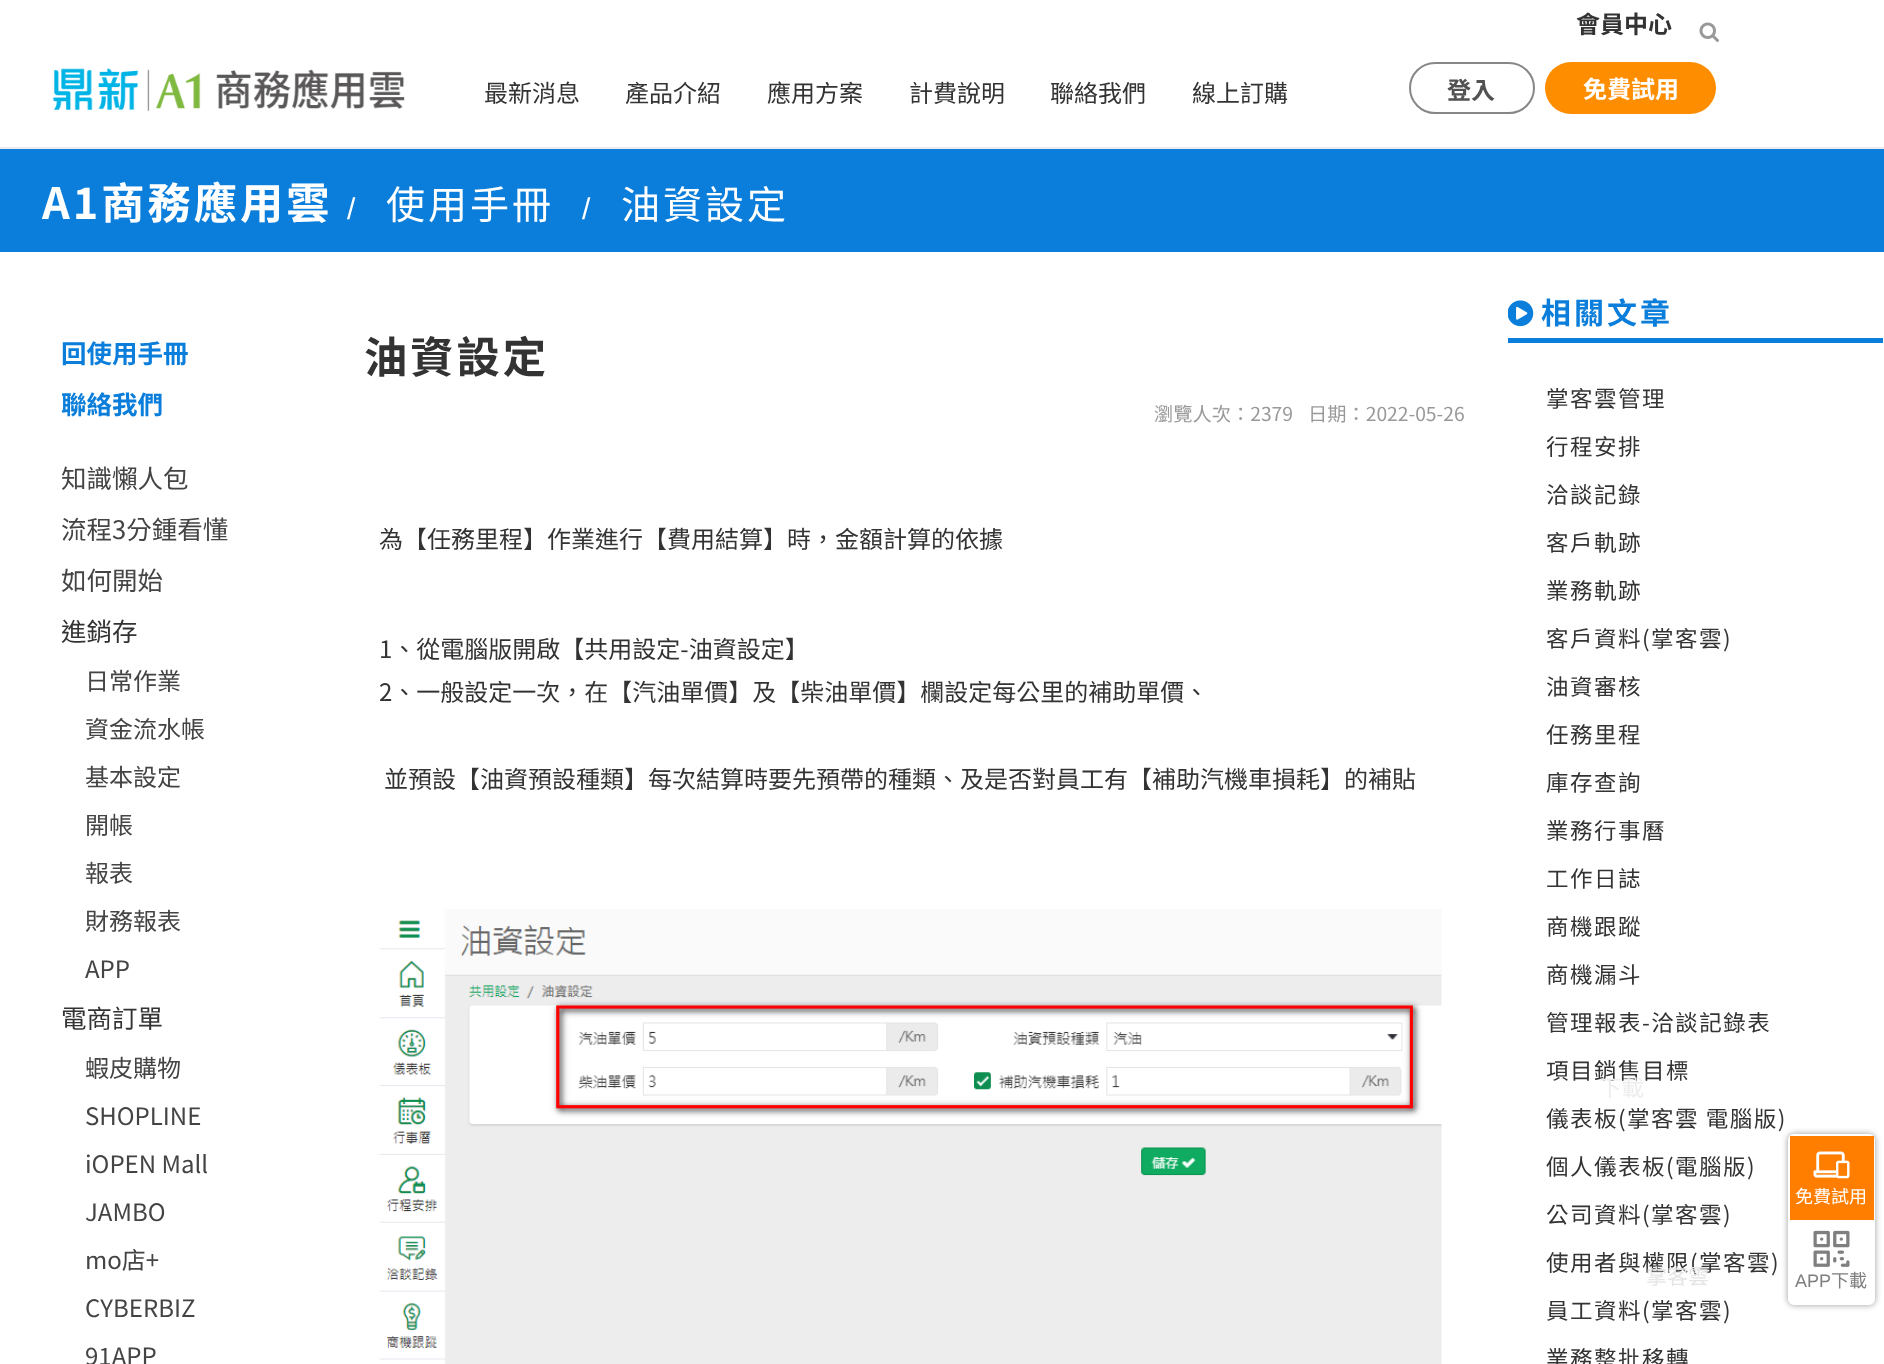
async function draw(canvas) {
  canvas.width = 1884;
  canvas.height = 1364;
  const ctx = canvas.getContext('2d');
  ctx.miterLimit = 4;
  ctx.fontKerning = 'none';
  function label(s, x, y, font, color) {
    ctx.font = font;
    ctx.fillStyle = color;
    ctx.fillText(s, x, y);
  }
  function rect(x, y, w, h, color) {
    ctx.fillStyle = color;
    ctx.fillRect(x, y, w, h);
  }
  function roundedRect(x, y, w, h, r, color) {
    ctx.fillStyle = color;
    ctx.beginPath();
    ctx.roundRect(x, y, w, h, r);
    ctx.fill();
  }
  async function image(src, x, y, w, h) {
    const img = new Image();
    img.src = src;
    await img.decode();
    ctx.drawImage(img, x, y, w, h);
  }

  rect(0, 0, 1884, 1364, '#fff');
  rect(0, 147, 1884, 2, '#ebebeb');
  label('會員中心', 1576, 33, 'bold 24px Noto Sans TC', '#333');
  await image('assets/img1.png', 1699, 22, 20, 20);
  await image('assets/img2.png', 53, 68, 352, 43);
  label('最新消息', 484, 102, '24px Noto Sans TC', '#333');
  label('產品介紹', 625, 102, '24px Noto Sans TC', '#333');
  label('應用方案', 767, 102, '24px Noto Sans TC', '#333');
  label('計費說明', 909, 102, '24px Noto Sans TC', '#333');
  label('聯絡我們', 1050, 102, '24px Noto Sans TC', '#333');
  label('線上訂購', 1192, 102, '24px Noto Sans TC', '#333');
  ctx.beginPath();
  ctx.roundRect(1410, 63, 124, 50, 25);
  ctx.strokeStyle = '#878787';
  ctx.lineWidth = 2;
  ctx.stroke();
  label('登入', 1447, 99, 'bold 24px Noto Sans TC', '#525252');
  roundedRect(1545, 62, 171, 52, 26, '#ff8d00');
  label('免費試用', 1583, 98, 'bold 24px Noto Sans TC', '#fff');
  rect(0, 149, 1884, 103, '#0a7eda');
  ctx.letterSpacing = '3px';
  label('A1商務應用雲', 42, 219, 'bold 43.25px Noto Sans TC', '#fff');
  label('/', 347, 219, '30px Liberation Sans', '#fff');
  label('使用手冊', 386, 219, '39px Noto Sans TC', '#fff');
  label('/', 582, 219, '30px Liberation Sans', '#fff');
  label('油資設定', 621, 219, '39px Noto Sans TC', '#fff');
  ctx.letterSpacing = '0px';
  label('回使用手冊', 61, 363, 'bold 25.5px Noto Sans TC', '#0a7eda');
  label('聯絡我們', 61, 414, 'bold 25.5px Noto Sans TC', '#0a7eda');
  label('知識懶人包', 61, 488, '25.5px Noto Sans TC', '#444');
  label('流程3分鍾看懂', 61, 539, '25.5px Noto Sans TC', '#444');
  label('如何開始', 61, 590, '25.5px Noto Sans TC', '#444');
  label('進銷存', 61, 641, '25.5px Noto Sans TC', '#333');
  label('日常作業', 85, 690, '24px Noto Sans TC', '#444');
  label('資金流水帳', 85, 738, '24px Noto Sans TC', '#444');
  label('基本設定', 85, 786, '24px Noto Sans TC', '#444');
  label('開帳', 85, 834, '24px Noto Sans TC', '#444');
  label('報表', 85, 882, '24px Noto Sans TC', '#444');
  label('財務報表', 85, 930, '24px Noto Sans TC', '#444');
  label('APP', 85, 978, '24px Noto Sans TC', '#444');
  label('電商訂單', 61, 1028, '25.5px Noto Sans TC', '#333');
  label('蝦皮購物', 85, 1077, '24px Noto Sans TC', '#444');
  label('SHOPLINE', 85, 1125, '24px Noto Sans TC', '#444');
  label('iOPEN Mall', 85, 1173, '24px Noto Sans TC', '#444');
  label('JAMBO', 85, 1221, '24px Noto Sans TC', '#444');
  label('mo店+', 85, 1269, '24px Noto Sans TC', '#444');
  label('CYBERBIZ', 85, 1317, '24px Noto Sans TC', '#444');
  label('91APP', 85, 1365, '24px Noto Sans TC', '#444');
  ctx.letterSpacing = '3px';
  label('油資設定', 364, 373, 'bold 43.25px Noto Sans TC', '#333');
  ctx.letterSpacing = '0px';
  label('瀏覽人次：2379', 1154, 421, '19.25px Noto Sans TC', '#999');
  label('日期：2022-05-26', 1308, 421, '19.25px Noto Sans TC', '#999');
  label('為【任務里程】作業進行【費用結算】時，金額計算的依據', 379, 548, '24px Noto Sans TC', '#333');
  label('1、從電腦版開啟【共用設定-油資設定】', 379, 658, '24px Noto Sans TC', '#333');
  label('2、一般設定一次，在【汽油單價】及【柴油單價】欄設定每公里的補助單價、', 379, 701, '24px Noto Sans TC', '#333');
  label('並預設【油資預設種類】每次結算時要先預帶的種類、及是否對員工有【補助汽機車損耗】的補貼', 384, 788, '24px Noto Sans TC', '#333');
  await image('assets/img3.png', 379, 909, 1063, 455);
  rect(1508, 338, 375, 5, '#0a7eda');
  await image('assets/img4.png', 1508, 300, 26, 27);
  ctx.letterSpacing = '3px';
  label('相關文章', 1541, 324, 'bold 30px Noto Sans TC', '#0a7eda');
  ctx.letterSpacing = '1.5px';
  label('掌客雲管理', 1546, 407, '22.5px Noto Sans TC', '#333');
  label('行程安排', 1546, 455, '22.5px Noto Sans TC', '#333');
  label('洽談記錄', 1546, 503, '22.5px Noto Sans TC', '#333');
  label('客戶軌跡', 1546, 551, '22.5px Noto Sans TC', '#333');
  label('業務軌跡', 1546, 599, '22.5px Noto Sans TC', '#333');
  label('客戶資料(掌客雲)', 1546, 647, '22.5px Noto Sans TC', '#333');
  label('油資審核', 1546, 695, '22.5px Noto Sans TC', '#333');
  label('任務里程', 1546, 743, '22.5px Noto Sans TC', '#333');
  label('庫存查詢', 1546, 791, '22.5px Noto Sans TC', '#333');
  label('業務行事曆', 1546, 839, '22.5px Noto Sans TC', '#333');
  label('工作日誌', 1546, 887, '22.5px Noto Sans TC', '#333');
  label('商機跟蹤', 1546, 935, '22.5px Noto Sans TC', '#333');
  label('商機漏斗', 1546, 983, '22.5px Noto Sans TC', '#333');
  label('管理報表-洽談記錄表', 1546, 1031, '22.5px Noto Sans TC', '#333');
  label('項目銷售目標', 1546, 1079, '22.5px Noto Sans TC', '#333');
  label('儀表板(掌客雲 電腦版)', 1546, 1127, '22.5px Noto Sans TC', '#333');
  label('個人儀表板(電腦版)', 1546, 1175, '22.5px Noto Sans TC', '#333');
  label('公司資料(掌客雲)', 1546, 1223, '22.5px Noto Sans TC', '#333');
  label('使用者與權限(掌客雲)', 1546, 1271, '22.5px Noto Sans TC', '#333');
  label('員工資料(掌客雲)', 1546, 1319, '22.5px Noto Sans TC', '#333');
  label('業務整批移轉', 1546, 1367, '22.5px Noto Sans TC', '#333');
  ctx.fillStyle = '#00000066';
  ctx.filter = 'blur(3px)';
  ctx.beginPath();
  ctx.roundRect(1788, 1134, 87, 171, 6);
  ctx.fill();
  ctx.filter = 'none';
  ctx.fillStyle = '#fff';
  ctx.beginPath();
  ctx.roundRect(1789, 1135, 85, 169, 5);
  ctx.fill();
  ctx.strokeStyle = '#fff';
  ctx.stroke();
  ctx.letterSpacing = '0px';
  label('下載', 1599, 1096, '22.5px Noto Sans CJK TC', '#ededed');
  label('掌客雲', 1646, 1284, '21px Noto Sans CJK TC', '#e5e5e5');
  await image('assets/img5.png', 1813, 1230, 37, 37);
  label('APP', 1795, 1287, '18px Liberation Sans', '#7f7f7f');
  label('下載', 1831, 1287, '18px Noto Sans CJK TC', '#7f7f7f');
  rect(1790, 1136, 84, 84, '#ff7e00');
  await image('assets/img6.png', 1813, 1151, 37, 28);
  label('免費試用', 1795, 1203, '18px Noto Sans CJK TC', '#fff');
}

draw(document.querySelector('canvas'));
